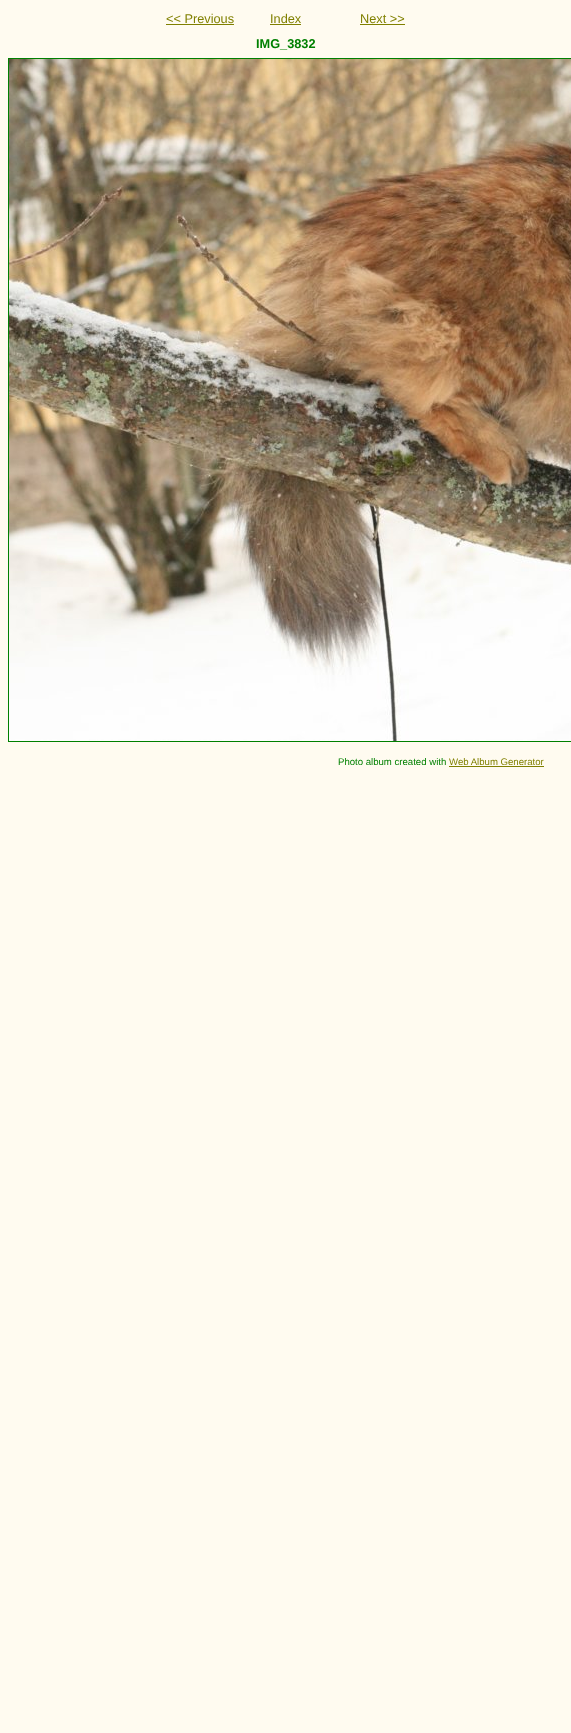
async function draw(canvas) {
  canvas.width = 571;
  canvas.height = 1733;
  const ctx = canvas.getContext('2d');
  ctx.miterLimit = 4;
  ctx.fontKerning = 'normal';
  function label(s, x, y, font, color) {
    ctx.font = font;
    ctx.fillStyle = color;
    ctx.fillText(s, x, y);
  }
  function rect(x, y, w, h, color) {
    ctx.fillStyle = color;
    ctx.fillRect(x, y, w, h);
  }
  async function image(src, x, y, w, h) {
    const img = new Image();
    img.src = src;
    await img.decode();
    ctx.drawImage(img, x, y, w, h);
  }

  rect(0, 0, 571, 1733, '#fffbf0');
  label('<< Previous', 166, 23, '12.75px Liberation Sans', '#808000');
  rect(166, 24, 68, 1, '#808000');
  label('Index', 270, 23, '12.75px Liberation Sans', '#808000');
  rect(270, 24, 31, 1, '#808000');
  label('Next >>', 360, 23, '12.75px Liberation Sans', '#808000');
  rect(360, 24, 45, 1, '#808000');
  label('IMG_3832', 256, 48, 'bold 12.75px Liberation Sans', '#008000');
  ctx.strokeStyle = '#008000';
  ctx.strokeRect(8.5, 58.5, 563, 683);
  await image('assets/img1.png', 9, 59, 562, 682);
  label('Photo album created with', 338, 765, '9.6px Liberation Sans', '#008000');
  label('Web Album Generator', 449, 765, '9.6px Liberation Sans', '#808000');
  rect(449, 766, 95, 1, '#808000');
}

draw(document.querySelector('canvas'));
